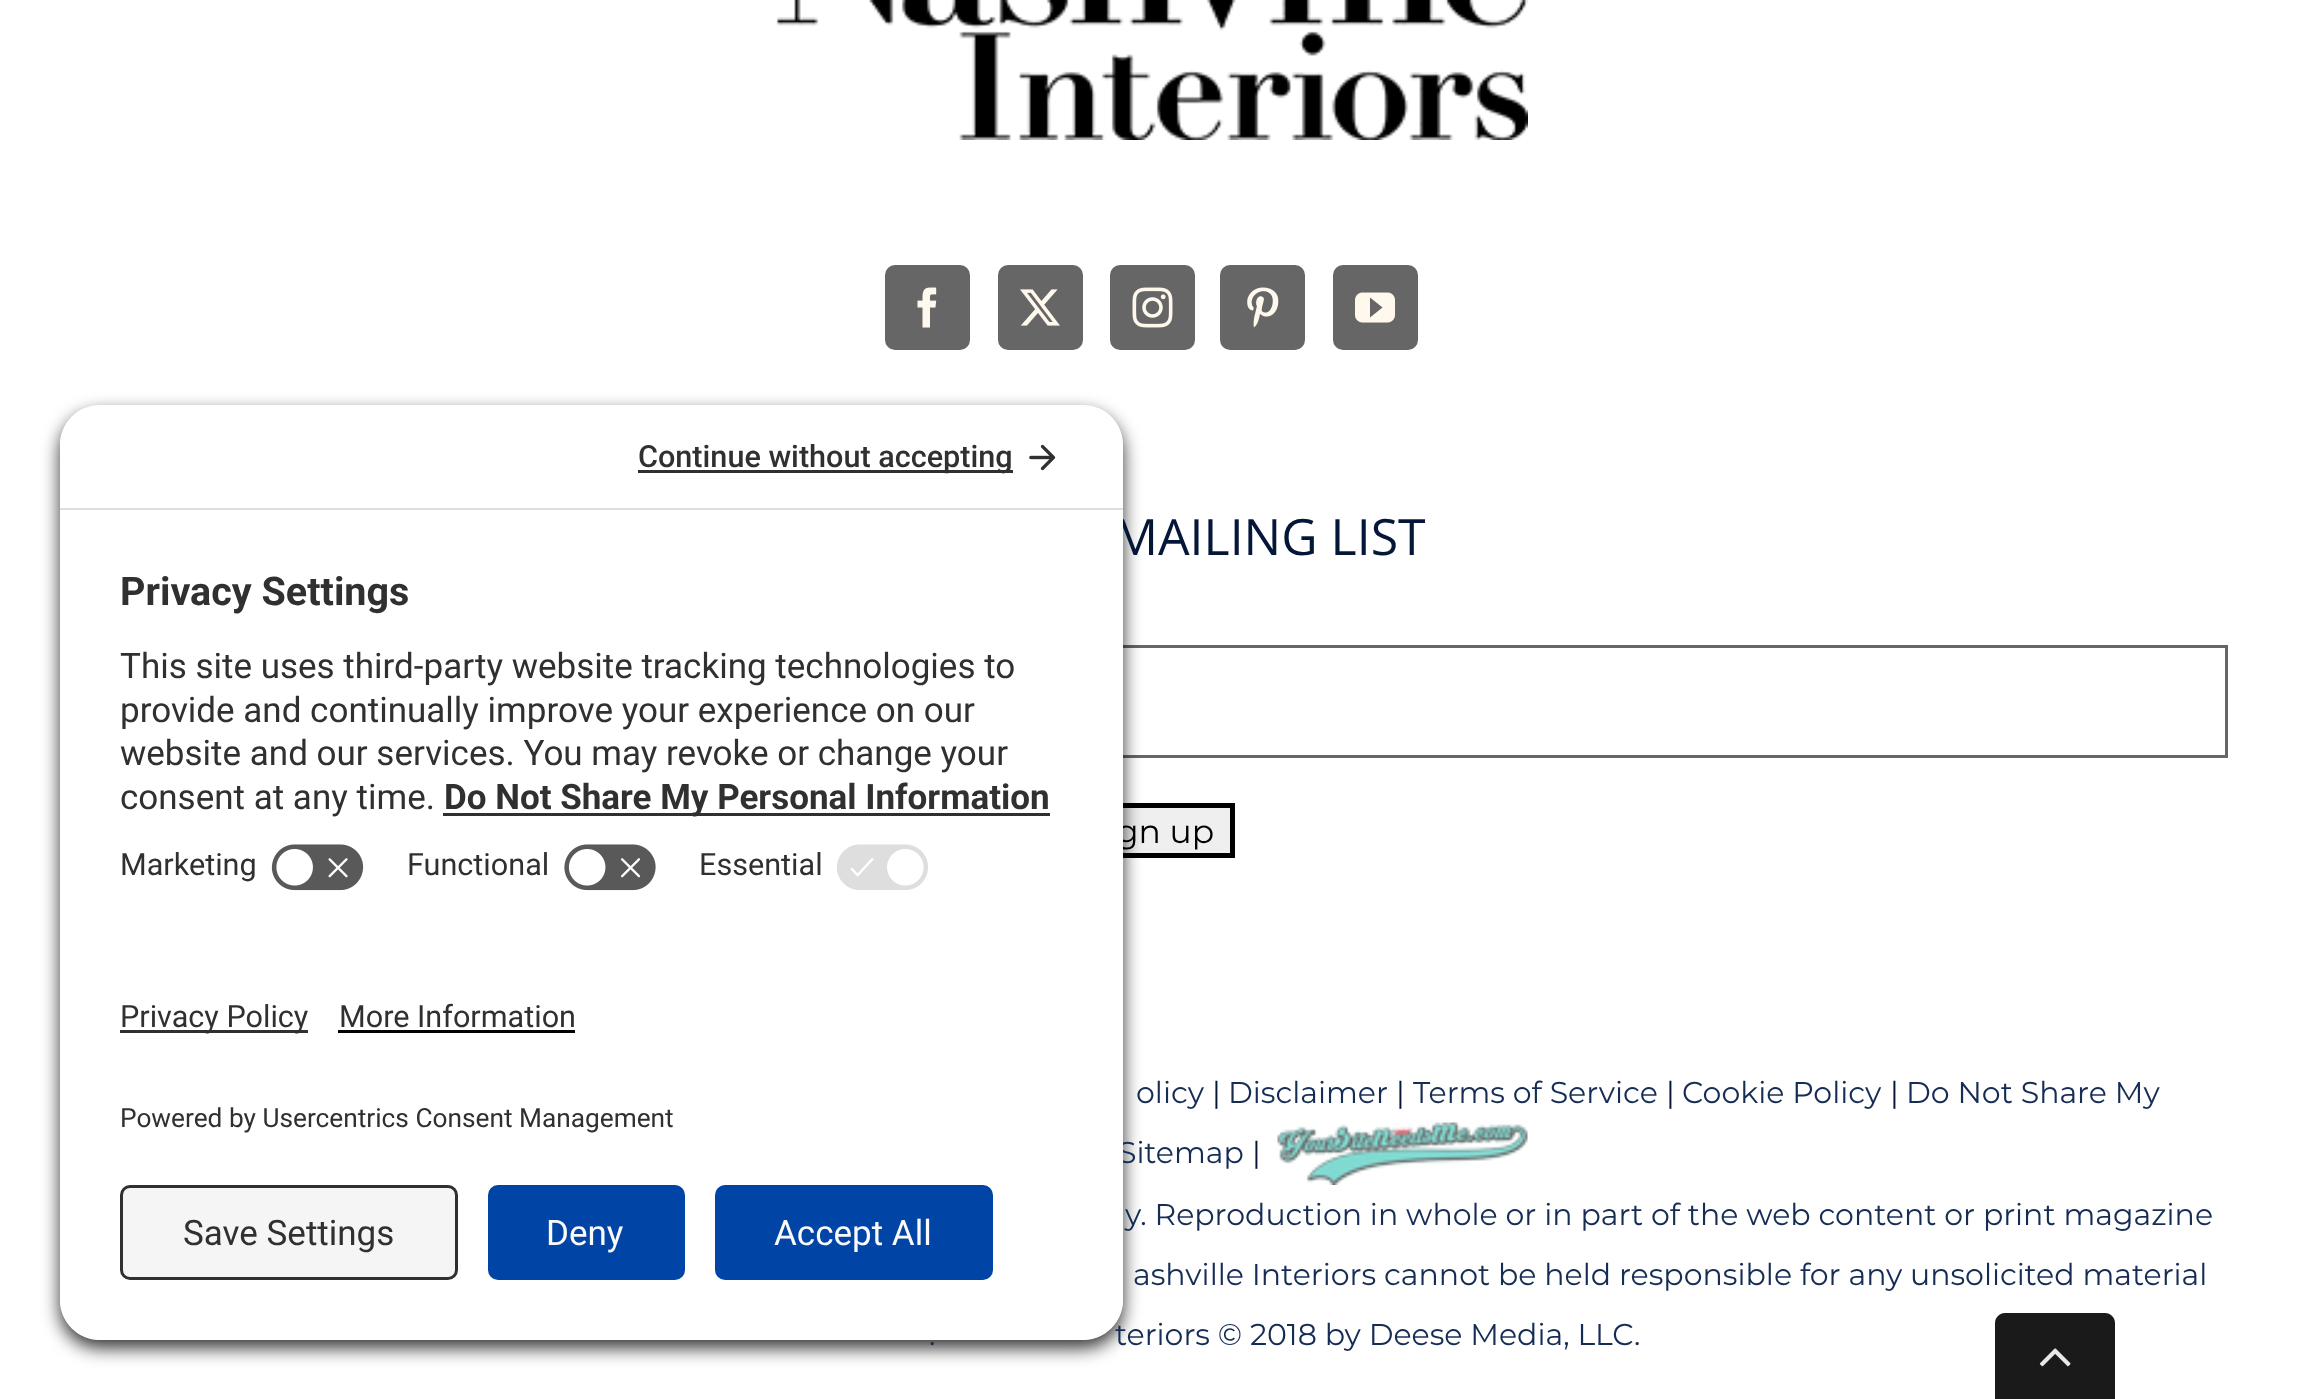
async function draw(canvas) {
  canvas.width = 2302;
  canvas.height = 1399;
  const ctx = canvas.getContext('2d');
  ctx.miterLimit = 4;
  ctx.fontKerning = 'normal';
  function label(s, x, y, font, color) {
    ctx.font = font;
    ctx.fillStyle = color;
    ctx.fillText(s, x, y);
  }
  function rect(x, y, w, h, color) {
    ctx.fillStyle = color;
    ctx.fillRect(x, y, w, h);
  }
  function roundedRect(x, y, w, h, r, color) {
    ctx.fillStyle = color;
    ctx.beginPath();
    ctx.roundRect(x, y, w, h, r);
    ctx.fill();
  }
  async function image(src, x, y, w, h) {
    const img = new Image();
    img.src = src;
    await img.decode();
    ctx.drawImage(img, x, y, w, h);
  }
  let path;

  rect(0, 0, 2302, 1399, '#fff');
  ctx.strokeStyle = '#666';
  ctx.lineWidth = 3;
  ctx.strokeRect(76.5, 646.5, 2150, 110);
  rect(1123, 808, 107, 45, '#efefef');
  ctx.strokeStyle = '#000';
  ctx.lineWidth = 5;
  ctx.strokeRect(1070.5, 805.5, 162, 50);
  ctx.save();
  path = new Path2D('M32 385H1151V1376H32ZM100 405H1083C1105 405 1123 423 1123 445V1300C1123 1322 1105 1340 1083 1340H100C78 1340 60 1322 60 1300V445C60 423 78 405 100 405Z');
  ctx.clip(path, 'evenodd');
  ctx.fillStyle = '#000000cc';
  ctx.filter = 'blur(9px)';
  ctx.beginPath();
  ctx.roundRect(60, 413, 1063, 935, 40);
  ctx.fill();
  ctx.filter = 'none';
  ctx.restore();
  ctx.save();
  ctx.beginPath();
  ctx.roundRect(60, 405, 1063, 525, [40, 40, 0, 0]);
  ctx.clip();
  rect(60, 408, 1063, 100, '#fff');
  ctx.restore();
  rect(60, 508, 1063, 2, '#dedede');
  rect(638, 470, 375, 3, '#303030');
  label('Continue without accepting', 638, 467, '500 30.6px Roboto', '#303030');
  await image('assets/img1.png', 1029, 444, 27, 27);
  label('MAILING LIST', 1113, 555, '50px Open Sans', '#051738');
  label('gn up', 1116, 843, '33px Montserrat', '#000');
  rect(75, 510, 1048, 420, '#fff');
  label('Privacy Settings', 120, 605, 'bold 39.5px Roboto', '#303030');
  label('This site uses third-party website tracking technologies to', 120, 678, '35px Roboto', '#303030');
  label('provide and continually improve your experience on our', 120, 722, '35px Roboto', '#303030');
  label('website and our services. You may revoke or change your', 120, 765, '35px Roboto', '#303030');
  label('consent at any time.', 120, 809, '35px Roboto', '#303030');
  rect(443, 813, 607, 3, '#303030');
  label('Do Not Share My Personal Information', 444, 809, 'bold 35px Roboto', '#303030');
  label('Marketing', 120, 875, '30.6px Roboto', '#303030');
  await image('assets/img2.png', 271, 844, 93, 47);
  label('Functional', 407, 875, '30.6px Roboto', '#303030');
  await image('assets/img3.png', 564, 844, 92, 47);
  label('Essential', 699, 875, '30.6px Roboto', '#303030');
  await image('assets/img4.png', 837, 844, 91, 46);
  label('Sitemap', 1118, 1163, '30px Montserrat', '#152c55');
  label('teriors © 2018 by Deese Media, LLC.', 1115, 1345, '30px Montserrat', '#152c55');
  ctx.fillStyle = '#fff';
  ctx.beginPath();
  ctx.roundRect(60, 930, 1063, 410, [0, 0, 40, 40]);
  ctx.fill();
  rect(120, 1030, 188, 3, '#303030');
  label('Privacy Policy', 120, 1027, '30.6px Roboto', '#303030');
  label('More Information', 339, 1027, '30.6px Roboto', '#303030');
  rect(338, 1030, 237, 3, '#000');
  label('Powered by Usercentrics Consent Management', 120, 1127, '26.25px Roboto', '#303030');
  ctx.fillStyle = '#f5f5f5';
  ctx.beginPath();
  ctx.roundRect(121.5, 1186.5, 335, 92, 8.5);
  ctx.fill();
  ctx.strokeStyle = '#303030';
  ctx.lineWidth = 3;
  ctx.stroke();
  label('Save Settings', 183, 1245, '35px Roboto', '#303030');
  roundedRect(488, 1185, 197, 95, 10, '#0045a5');
  label('Deny', 546, 1245, '35px Roboto', '#fafafa');
  roundedRect(715, 1185, 278, 95, 10, '#0045a5');
  label('Accept All', 774, 1245, '35px Roboto', '#fafafa');
  await image('assets/img5.png', 776, 0, 752, 140);
  ctx.fillStyle = '#666';
  ctx.beginPath();
  ctx.roundRect(886.5, 266.5, 82, 82, 8.5);
  ctx.fill();
  ctx.strokeStyle = '#666';
  ctx.stroke();
  await image('assets/img6.png', 917, 287, 20, 41);
  ctx.beginPath();
  ctx.roundRect(999.5, 266.5, 82, 82, 8.5);
  ctx.fill();
  ctx.stroke();
  await image('assets/img7.png', 1020, 289, 40, 37);
  ctx.beginPath();
  ctx.roundRect(1111.5, 266.5, 82, 82, 8.5);
  ctx.fill();
  ctx.stroke();
  await image('assets/img8.png', 1132, 287, 41, 41);
  ctx.beginPath();
  ctx.roundRect(1221.5, 266.5, 82, 82, 8.5);
  ctx.fill();
  ctx.stroke();
  await image('assets/img9.png', 1247, 287, 32, 41);
  ctx.beginPath();
  ctx.roundRect(1334.5, 266.5, 82, 82, 8.5);
  ctx.fill();
  ctx.stroke();
  await image('assets/img10.png', 1355, 292, 40, 31);
  label('olicy', 1136, 1103, '30px Montserrat', '#152c55');
  label('|', 1212, 1103, '30px Montserrat', '#051738');
  label('Disclaimer', 1228, 1103, '30px Montserrat', '#152c55');
  label('|', 1396, 1103, '30px Montserrat', '#051738');
  label('Terms of Service', 1413, 1103, '30px Montserrat', '#152c55');
  label('|', 1666, 1103, '30px Montserrat', '#051738');
  label('Cookie Policy', 1682, 1103, '30px Montserrat', '#152c55');
  label('|', 1890, 1103, '30px Montserrat', '#051738');
  label('Do Not Share My', 1906, 1103, '30px Montserrat', '#152c55');
  label('|', 1252, 1163, '30px Montserrat', '#051738');
  await image('assets/img11.png', 1277, 1122, 251, 63);
  label('y. Reproduction in whole or in part of the web content or print magazine', 1125, 1225, '30px Montserrat', '#152c55');
  label('ashville Interiors cannot be held responsible for any unsolicited material', 1133, 1285, '30px Montserrat', '#152c55');
  label('.', 929, 1345, '30px Montserrat', '#152c55');
  ctx.fillStyle = '#1a1a1a';
  path = new Path2D('M2005 1313H2105C2110.5 1313 2115 1317.5 2115 1323V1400H1995V1323C1995 1317.5 1999.5 1313 2005 1313Z');
  ctx.fill(path);
  await image('assets/img12.png', 2039, 1348, 32, 19);
}

draw(document.querySelector('canvas'));
